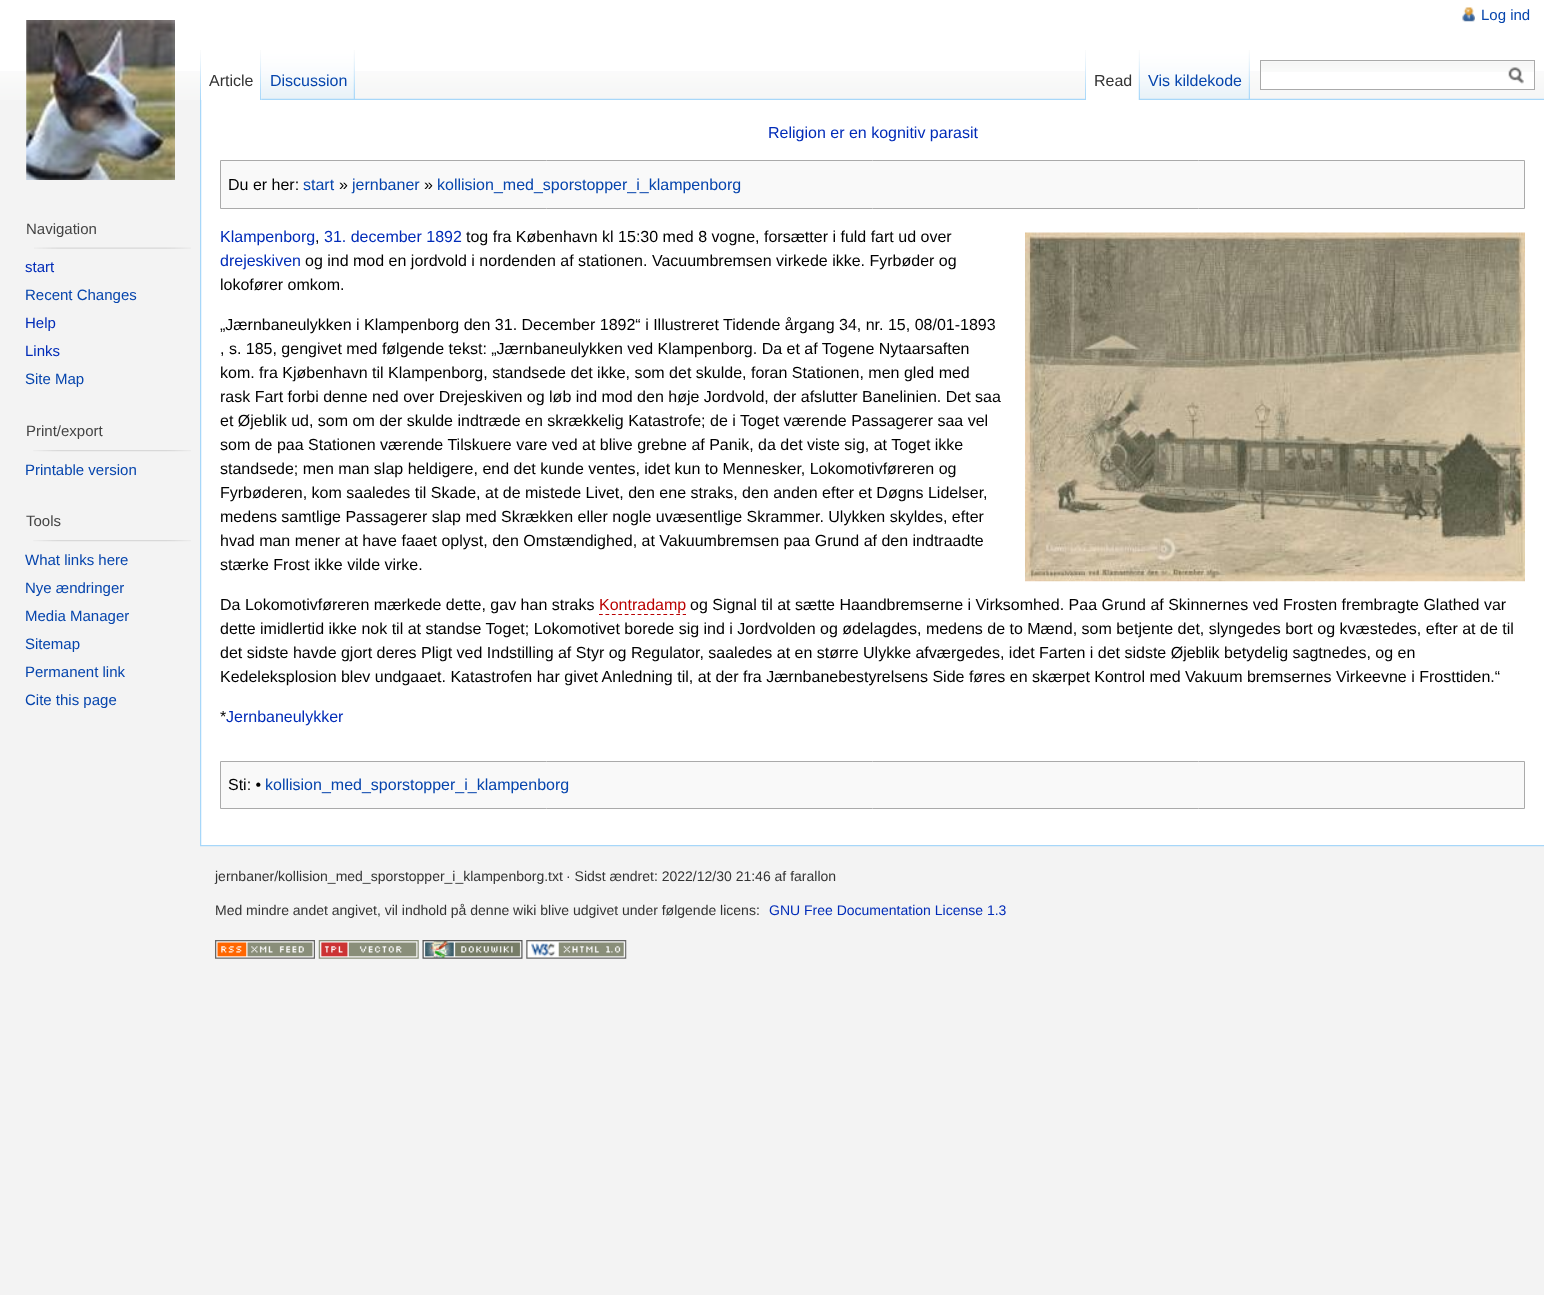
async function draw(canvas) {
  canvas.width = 1544;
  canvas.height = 1295;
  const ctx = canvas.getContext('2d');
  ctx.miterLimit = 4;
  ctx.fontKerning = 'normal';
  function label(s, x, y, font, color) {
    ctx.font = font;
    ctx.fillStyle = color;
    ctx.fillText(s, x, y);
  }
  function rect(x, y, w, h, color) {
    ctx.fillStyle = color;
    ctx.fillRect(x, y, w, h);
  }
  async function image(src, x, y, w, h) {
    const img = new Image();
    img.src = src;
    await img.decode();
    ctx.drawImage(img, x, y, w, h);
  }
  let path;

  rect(0, 0, 1544, 1295, '#f3f3f3');
  rect(0, 0, 1544, 71, '#fff');
  await image('assets/img1.png', 0, 71, 1544, 29);
  await image('assets/img2.png', 1462, 7, 13, 15);
  label('Log ind', 1481, 20, '15px Liberation Sans', '#0645ad');
  await image('assets/img11.png', 200, 98, 1344, 2);
  await image('assets/img3.png', 200, 50, 1, 49);
  rect(201, 71, 61, 29, '#fff');
  await image('assets/img4.png', 260, 50, 2, 50);
  label('Article', 209, 86, '16px Liberation Sans', '#333');
  await image('assets/img5.png', 261, 50, 94, 50);
  await image('assets/img6.png', 353, 50, 2, 49);
  label('Discussion', 270, 86, '16px Liberation Sans', '#0645ad');
  await image('assets/img3.png', 1085, 50, 1, 49);
  rect(1086, 71, 53, 29, '#fff');
  await image('assets/img7.png', 1138, 50, 2, 50);
  label('Read', 1094, 86, '16px Liberation Sans', '#333');
  await image('assets/img8.png', 1140, 50, 110, 50);
  await image('assets/img6.png', 1248, 50, 2, 49);
  label('Vis kildekode', 1148, 86, '16px Liberation Sans', '#0645ad');
  rect(1261, 71, 273, 18, '#fff');
  await image('assets/img9.png', 1261, 61, 273, 11);
  ctx.strokeStyle = '#aaa';
  ctx.strokeRect(1260.5, 60.5, 274, 29);
  await image('assets/img10.png', 1508, 67, 16, 17);
  await image('assets/img12.png', 26, 20, 149, 160);
  label('Navigation', 26, 234, '15px Liberation Sans', '#444');
  await image('assets/img13.png', 34, 247, 157, 2);
  label('start', 25, 272, '15px Liberation Sans', '#002bb8');
  label('Recent Changes', 25, 300, '15px Liberation Sans', '#0645ad');
  label('Help', 25, 328, '15px Liberation Sans', '#002bb8');
  label('Links', 25, 356, '15px Liberation Sans', '#002bb8');
  label('Site Map', 25, 384, '15px Liberation Sans', '#0645ad');
  label('Print/export', 26, 436, '15px Liberation Sans', '#444');
  await image('assets/img14.png', 33, 450, 158, 2);
  label('Printable version', 25, 475, '15px Liberation Sans', '#0645ad');
  label('Tools', 26, 526, '15px Liberation Sans', '#444');
  await image('assets/img14.png', 33, 540, 158, 2);
  label('What links here', 25, 565, '15px Liberation Sans', '#0645ad');
  label('Nye ændringer', 25, 593, '15px Liberation Sans', '#0645ad');
  label('Media Manager', 25, 621, '15px Liberation Sans', '#0645ad');
  label('Sitemap', 25, 649, '15px Liberation Sans', '#0645ad');
  label('Permanent link', 25, 677, '15px Liberation Sans', '#0645ad');
  label('Cite this page', 25, 705, '15px Liberation Sans', '#0645ad');
  rect(201, 100, 1343, 745, '#fff');
  await image('assets/img15.png', 200, 100, 2, 745);
  label('Religion er en kognitiv parasit', 768, 138, '16px Liberation Sans', '#002bb8');
  ctx.fillStyle = '#f9f9f9';
  ctx.beginPath();
  ctx.rect(220.5, 160.5, 1304, 48);
  ctx.fill();
  ctx.stroke();
  label('Du er her:', 228, 190, '16px Liberation Sans', '#000');
  label('start', 303, 190, '16px Liberation Sans', '#0645ad');
  label('»', 339, 190, '16px Liberation Sans', '#000');
  label('jernbaner', 352, 190, '16px Liberation Sans', '#0645ad');
  label('»', 424, 190, '16px Liberation Sans', '#000');
  label('kollision_med_sporstopper_i_klampenborg', 437, 190, '16px Liberation Sans', '#0645ad');
  label('Klampenborg', 220, 242, '16px Liberation Sans', '#002bb8');
  label(',', 315, 242, '16px Liberation Sans', '#000');
  label('31. december 1892', 324, 242, '16px Liberation Sans', '#002bb8');
  label('tog fra København kl 15:30 med 8 vogne, forsætter i fuld fart ud over', 466, 242, '16px Liberation Sans', '#000');
  await image('assets/img16.png', 1025, 232, 500, 350);
  label('drejeskiven', 220, 266, '16px Liberation Sans', '#002bb8');
  label('og ind mod en jordvold i nordenden af stationen. Vacuumbremsen virkede ikke. Fyrbøder og', 305, 266, '16px Liberation Sans', '#000');
  label('lokofører omkom.', 220, 290, '16px Liberation Sans', '#000');
  label('„Jærnbaneulykken i Klampenborg den 31. December 1892“ i Illustreret Tidende årgang 34, nr. 15, 08/01-1893', 220, 330, '16px Liberation Sans', '#000');
  label(', s. 185, gengivet med følgende tekst: „Jærnbaneulykken ved Klampenborg. Da et af Togene Nytaarsaften', 220, 354, '16px Liberation Sans', '#000');
  label('kom. fra Kjøbenhavn til Klampenborg, standsede det ikke, som det skulde, foran Stationen, men gled med', 220, 378, '16px Liberation Sans', '#000');
  label('rask Fart forbi denne ned over Drejeskiven og løb ind mod den høje Jordvold, der afslutter Banelinien. Det saa', 220, 402, '16px Liberation Sans', '#000');
  label('et Øjeblik ud, som om der skulde indtræde en skrækkelig Katastrofe; de i Toget værende Passagerer saa vel', 220, 426, '16px Liberation Sans', '#000');
  label('som de paa Stationen værende Tilskuere vare ved at blive grebne af Panik, da det viste sig, at Toget ikke', 220, 450, '16px Liberation Sans', '#000');
  label('standsede; men man slap heldigere, end det kunde ventes, idet kun to Mennesker, Lokomotivføreren og', 220, 474, '16px Liberation Sans', '#000');
  label('Fyrbøderen, kom saaledes til Skade, at de mistede Livet, den ene straks, den anden efter et Døgns Lidelser,', 220, 498, '16px Liberation Sans', '#000');
  label('medens samtlige Passagerer slap med Skrækken eller nogle uvæsentlige Skrammer. Ulykken skyldes, efter', 220, 522, '16px Liberation Sans', '#000');
  label('hvad man mener at have faaet oplyst, den Omstændighed, at Vakuumbremsen paa Grund af den indtraadte', 220, 546, '16px Liberation Sans', '#000');
  label('stærke Frost ikke vilde virke.', 220, 570, '16px Liberation Sans', '#000');
  label('Da Lokomotivføreren mærkede dette, gav han straks', 220, 610, '16px Liberation Sans', '#000');
  path = new Path2D('M599 614.5H686');
  ctx.strokeStyle = '#ba0000';
  ctx.lineWidth = 1.2;
  ctx.setLineDash([3.75, 2.69]);
  ctx.stroke(path);
  label('Kontradamp', 599, 610, '16px Liberation Sans', '#ba0000');
  label('og Signal til at sætte Haandbremserne i Virksomhed. Paa Grund af Skinnernes ved Frosten frembragte Glathed var', 690, 610, '16px Liberation Sans', '#000');
  label('dette imidlertid ikke nok til at standse Toget; Lokomotivet borede sig ind i Jordvolden og ødelagdes, medens de to Mænd, som betjente det, slyngedes bort og kvæstedes, efter at de til', 220, 634, '16px Liberation Sans', '#000');
  label('det sidste havde gjort deres Pligt ved Indstilling af Styr og Regulator, saaledes at en større Ulykke afværgedes, idet Farten i det sidste Øjeblik betydelig sagtnedes, og en', 220, 658, '16px Liberation Sans', '#000');
  label('Kedeleksplosion blev undgaaet. Katastrofen har givet Anledning til, at der fra Jærnbanebestyrelsens Side føres en skærpet Kontrol med Vakuum bremsernes Virkeevne i Frosttiden.“', 220, 682, '16px Liberation Sans', '#000');
  label('*', 220, 722, '16px Liberation Sans', '#000');
  label('Jernbaneulykker', 226, 722, '16px Liberation Sans', '#002bb8');
  ctx.fillStyle = '#f9f9f9';
  ctx.beginPath();
  ctx.rect(220.5, 761.5, 1304, 47);
  ctx.fill();
  ctx.strokeStyle = '#aaa';
  ctx.lineWidth = 1;
  ctx.setLineDash([]);
  ctx.stroke();
  label('Sti: •', 228, 790, '16px Liberation Sans', '#000');
  label('kollision_med_sporstopper_i_klampenborg', 265, 790, '16px Liberation Sans', '#0645ad');
  await image('assets/img17.png', 200, 845, 1344, 2);
  label('jernbaner/kollision_med_sporstopper_i_klampenborg.txt', 215, 881, '14px Liberation Sans', '#333');
  label('· Sidst ændret: 2022/12/30 21:46 af farallon', 566, 881, '14px Liberation Sans', '#333');
  label('Med mindre andet angivet, vil indhold på denne wiki blive udgivet under følgende licens:', 215, 915, '14px Liberation Sans', '#333');
  label('GNU Free Documentation License 1.3', 769, 915, '14px Liberation Sans', '#002bb8');
  await image('assets/img18.png', 215, 940, 100, 19);
  await image('assets/img19.png', 318, 940, 101, 19);
  await image('assets/img20.png', 422, 940, 101, 19);
  await image('assets/img21.png', 526, 940, 101, 19);
}

draw(document.querySelector('canvas'));
